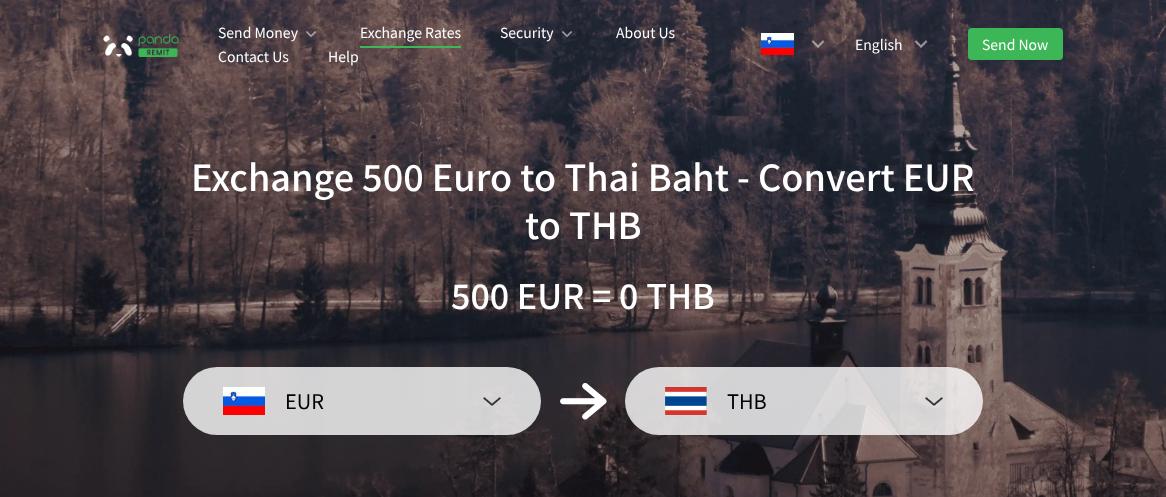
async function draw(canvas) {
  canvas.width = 1166;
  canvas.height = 497;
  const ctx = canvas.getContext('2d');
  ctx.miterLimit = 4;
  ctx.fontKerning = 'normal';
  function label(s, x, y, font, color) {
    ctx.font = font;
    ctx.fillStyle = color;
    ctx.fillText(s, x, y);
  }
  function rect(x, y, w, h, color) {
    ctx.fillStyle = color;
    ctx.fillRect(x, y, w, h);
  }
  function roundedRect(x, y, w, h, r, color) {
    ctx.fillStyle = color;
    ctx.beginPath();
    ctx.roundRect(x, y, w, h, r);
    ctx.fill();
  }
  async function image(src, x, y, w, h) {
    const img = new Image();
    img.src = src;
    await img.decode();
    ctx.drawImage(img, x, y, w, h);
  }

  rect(0, 0, 1166, 497, '#fff');
  await image('assets/img1.png', 0, 0, 1166, 497);
  await image('assets/img2.png', 103, 33, 76, 24);
  label('Send Money', 218, 38, '14px Noto Sans CJK SC', '#fff');
  await image('assets/img3.png', 305, 31, 12, 7);
  label('Exchange Rates', 360, 38, '14px Noto Sans CJK SC', '#fff');
  rect(360, 46, 101, 2, '#3db657');
  label('Security', 500, 38, '14px Noto Sans CJK SC', '#fff');
  await image('assets/img4.png', 561, 31, 12, 7);
  label('About Us', 616, 38, '14px Noto Sans CJK SC', '#fff');
  label('Contact Us', 218, 62, '14px Noto Sans CJK SC', '#fff');
  label('Help', 328, 62, '14px Noto Sans CJK SC', '#fff');
  await image('assets/img5.png', 761, 33, 33, 22);
  await image('assets/img6.png', 811, 40, 14, 8);
  label('English', 855, 50, '14px Noto Sans CJK SC', '#fff');
  await image('assets/img7.png', 914, 40, 14, 8);
  roundedRect(968, 28, 95, 32, 4, '#3db657');
  label('Send Now', 982, 50, '14px Noto Sans CJK SC', '#fff');
  label('Exchange 500 Euro to Thai Baht - Convert EUR', 191, 191, '500 36px Noto Sans CJK SC', '#fff');
  label('to THB', 525, 239, '500 36px Noto Sans CJK SC', '#fff');
  label('500 EUR = 0 THB', 451, 309, '500 34px Noto Sans CJK SC', '#fff');
  roundedRect(183, 367, 358, 68, 34, '#ffffffcc');
  await image('assets/img8.png', 223, 387, 42, 28);
  label('EUR', 285, 409, '20px Noto Sans CJK SC', '#000');
  await image('assets/img9.png', 483, 397, 18, 9);
  await image('assets/img10.png', 560, 383, 47, 37);
  roundedRect(625, 367, 358, 68, 34, '#ffffffcc');
  await image('assets/img11.png', 665, 387, 42, 28);
  label('THB', 727, 409, '20px Noto Sans CJK SC', '#000');
  await image('assets/img12.png', 925, 397, 18, 9);
}

draw(document.querySelector('canvas'));
